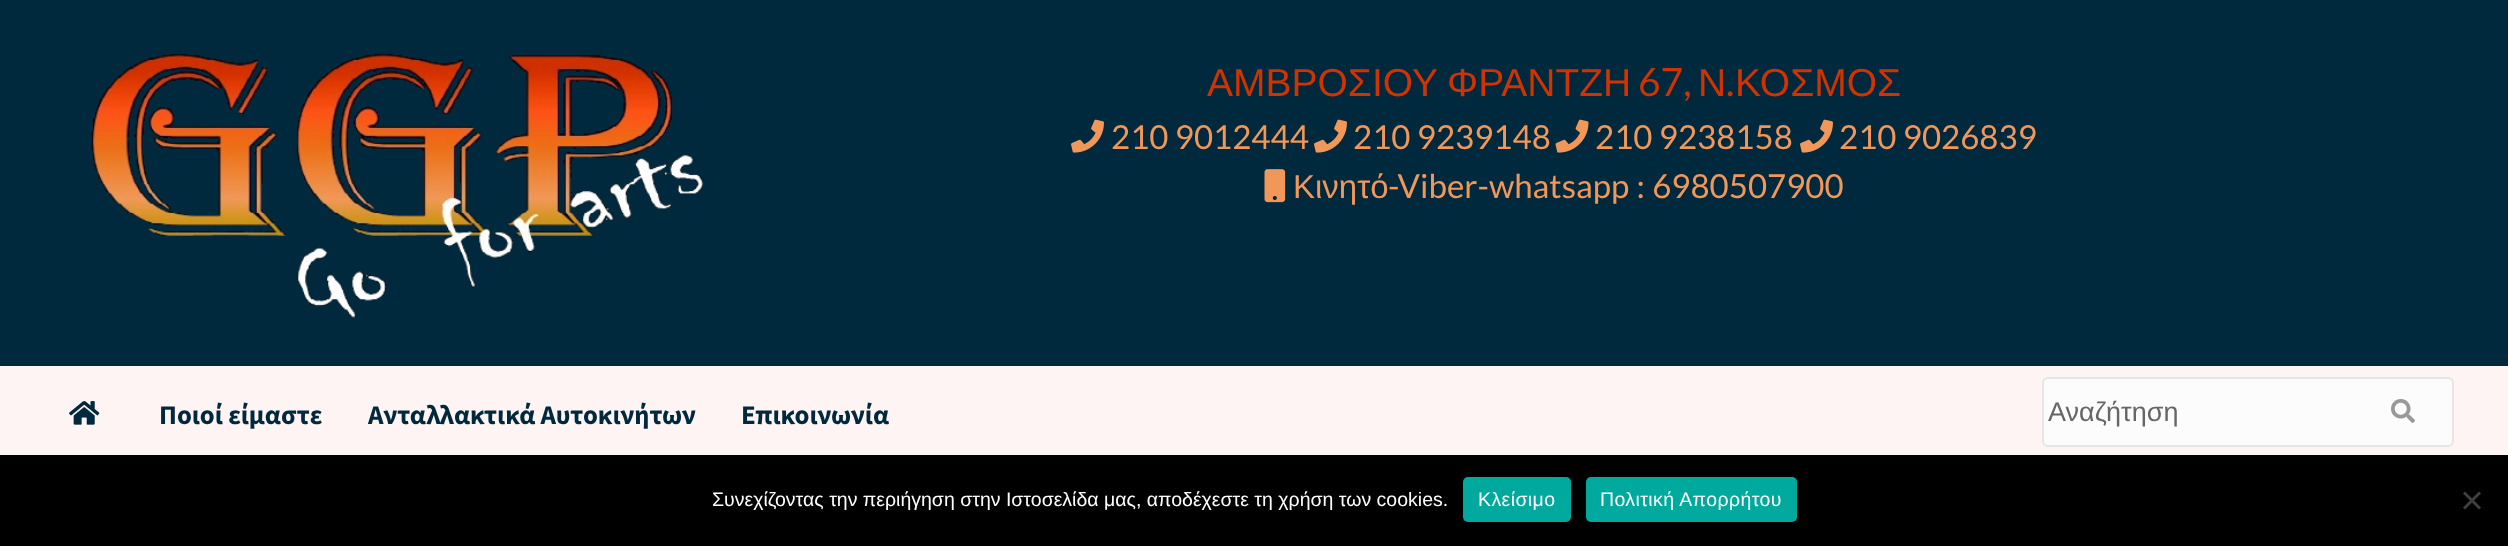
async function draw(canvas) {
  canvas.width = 2508;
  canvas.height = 546;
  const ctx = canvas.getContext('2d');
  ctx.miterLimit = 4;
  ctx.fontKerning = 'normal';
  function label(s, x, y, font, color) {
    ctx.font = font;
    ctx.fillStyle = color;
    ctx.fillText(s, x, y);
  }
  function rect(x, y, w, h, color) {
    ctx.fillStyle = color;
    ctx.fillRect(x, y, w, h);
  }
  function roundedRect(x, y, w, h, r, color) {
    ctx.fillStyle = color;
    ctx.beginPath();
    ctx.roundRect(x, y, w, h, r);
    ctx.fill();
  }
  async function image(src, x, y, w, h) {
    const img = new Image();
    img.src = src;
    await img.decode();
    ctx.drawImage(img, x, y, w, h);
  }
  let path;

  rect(0, 0, 2508, 546, '#00293d');
  await image('assets/img1.png', 91, 54, 613, 264);
  ctx.wordSpacing = '-1px';
  label('ΑΜΒΡΟΣΙΟΥ ΦΡΑΝΤΖΗ', 1207, 96, '39px Liberation Sans', '#d03200');
  ctx.wordSpacing = '0px';
  label('67,', 1638, 96, '39px Lato', '#d03200');
  label('Ν', 1698, 96, '39px Liberation Sans', '#d03200');
  label('.', 1726, 96, '39px Lato', '#d03200');
  label('ΚΟΣΜΟΣ', 1735, 96, '39px Liberation Sans', '#d03200');
  await image('assets/img2.png', 1071, 119, 33, 34);
  label('210 9012444', 1111, 149, '33px Lato', '#f19759');
  await image('assets/img2.png', 1314, 119, 33, 34);
  label('210 9239148', 1353, 149, '33px Lato', '#f19759');
  await image('assets/img3.png', 1555, 119, 34, 34);
  label('210 9238158', 1595, 149, '33px Lato', '#f19759');
  await image('assets/img2.png', 1800, 119, 33, 34);
  label('210 9026839', 1839, 149, '33px Lato', '#f19759');
  await image('assets/img4.png', 1264, 169, 22, 34);
  label('Κινητό', 1293, 198, '33px Liberation Sans', '#f19759');
  ctx.wordSpacing = '1px';
  label('-Viber-whatsapp : 6980507900', 1388, 198, '33px Lato', '#f19759');
  rect(0, 366, 2508, 89, '#fff4f4');
  await image('assets/img5.png', 69, 401, 31, 24);
  ctx.wordSpacing = '0px';
  label('Ποιοί είμαστε', 159, 424, 'bold 27px Source Sans Pro', '#00293d');
  label('Ανταλλακτικά Αυτοκινήτων', 368, 424, 'bold 27px Source Sans Pro', '#00293d');
  label('Επικοινωνία', 741, 424, 'bold 27px Source Sans Pro', '#00293d');
  ctx.fillStyle = '#fcfcfc';
  ctx.beginPath();
  ctx.roundRect(2043, 378, 410, 68, 5);
  ctx.fill();
  ctx.strokeStyle = '#e6e6e6';
  ctx.lineWidth = 2;
  ctx.stroke();
  label('Αναζήτηση', 2048, 421, '27px Liberation Sans', '#666');
  await image('assets/img6.png', 2391, 399, 24, 24);
  rect(0, 455, 2508, 91, '#000');
  label('Συνεχίζοντας την περιήγηση στην Ιστοσελίδα μας, αποδέχεστε τη χρήση των cookies.', 712, 506, '19.5px Liberation Sans', '#fff');
  roundedRect(1463, 477, 108, 45, 5, '#00a99d');
  ctx.letterSpacing = '0.4px';
  label('Κλείσιμο', 1478, 506, '19.5px Liberation Sans', '#fff');
  roundedRect(1586, 477, 211, 45, 5, '#00a99d');
  label('Πολιτική Απορρήτου', 1600, 506, '19.5px Liberation Sans', '#fff');
  ctx.fillStyle = '#404040';
  path = new Path2D('M2479 491.5L2481 493.5L2465 509.5L2463 507.5Z');
  ctx.fill(path);
  path = new Path2D('M2463 493.5L2465 491.5L2481 507.5L2479 509.5Z');
  ctx.fill(path);
}

draw(document.querySelector('canvas'));
